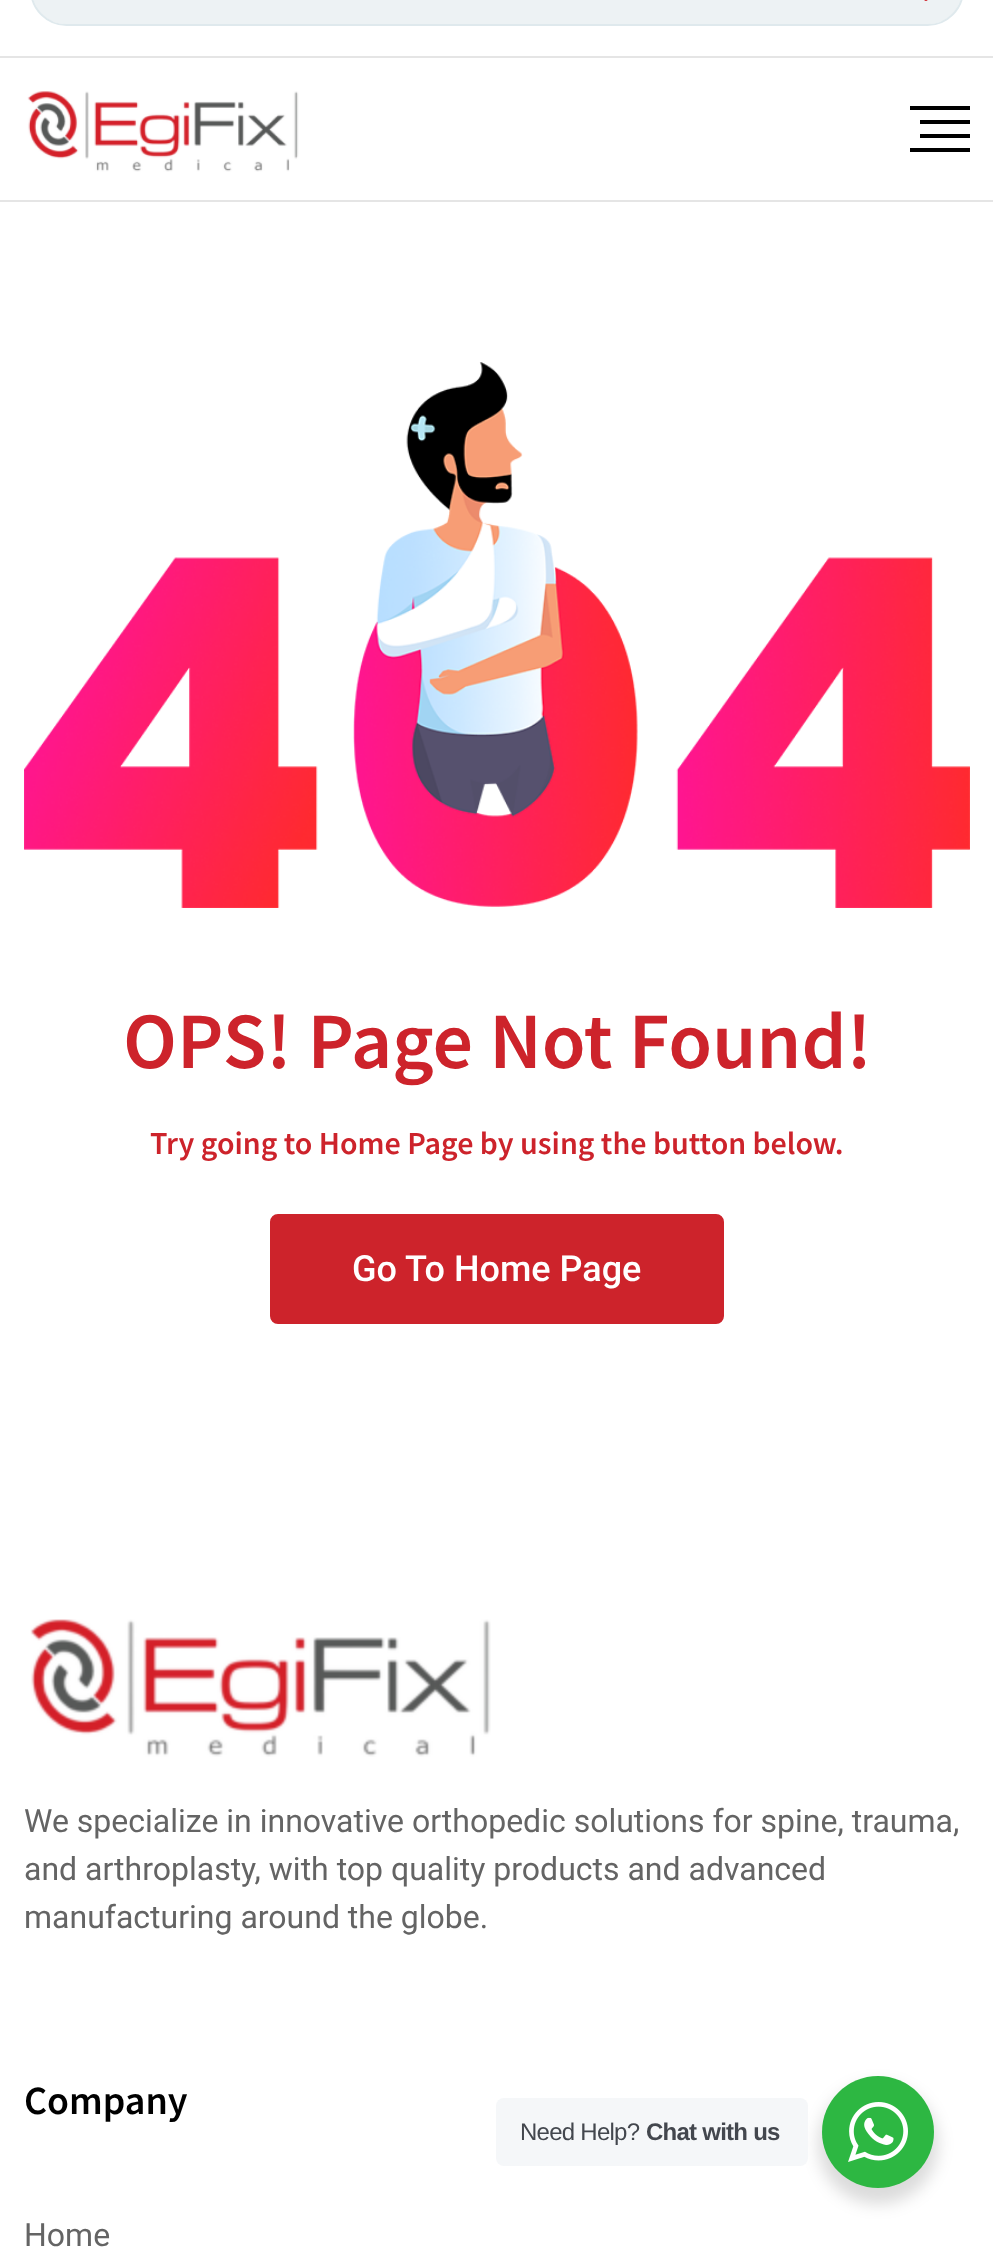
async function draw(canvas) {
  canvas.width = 993;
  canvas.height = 2247;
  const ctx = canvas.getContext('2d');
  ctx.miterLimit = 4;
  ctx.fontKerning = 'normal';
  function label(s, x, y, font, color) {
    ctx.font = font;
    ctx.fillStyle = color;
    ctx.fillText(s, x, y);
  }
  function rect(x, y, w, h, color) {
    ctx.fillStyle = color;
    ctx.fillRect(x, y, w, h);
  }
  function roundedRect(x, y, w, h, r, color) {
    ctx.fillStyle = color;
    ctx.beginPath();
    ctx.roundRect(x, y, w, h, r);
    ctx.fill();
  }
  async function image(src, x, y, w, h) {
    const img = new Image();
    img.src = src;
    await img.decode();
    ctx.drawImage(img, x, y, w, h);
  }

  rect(0, 0, 993, 2247, '#fff');
  roundedRect(32, -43, 930, 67, 43, '#edf2f4');
  ctx.beginPath();
  ctx.roundRect(31, -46, 932, 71, 44);
  ctx.strokeStyle = '#dfe9ed';
  ctx.lineWidth = 2;
  ctx.stroke();
  await image('assets/img1.png', 924, 0, 4, 1);
  rect(0, 56, 993, 2, '#e5e5e5');
  rect(0, 200, 993, 2, '#e5e5e5');
  await image('assets/img2.png', 27, 91, 272, 81);
  rect(910, 106, 60, 4, '#000');
  rect(920, 120, 50, 4, '#000');
  rect(920, 134, 50, 4, '#000');
  rect(910, 148, 60, 4, '#000');
  await image('assets/img3.png', 24, 362, 946, 546);
  label('OPS! Page Not Found!', 123, 1068, '600 80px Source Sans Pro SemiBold', '#cd232b');
  label('Try going to Home Page by using the button below.', 150, 1154, '600 32px Source Sans Pro SemiBold', '#cd232b');
  ctx.beginPath();
  ctx.roundRect(271, 1215, 452, 108, 7);
  ctx.fill();
  ctx.strokeStyle = '#cd232b';
  ctx.stroke();
  label('Go To Home Page', 352, 1281, '500 36px Roboto', '#fff');
  await image('assets/img4.png', 30, 1619, 461, 138);
  label('We specialize in innovative orthopedic solutions for spine, trauma,', 24, 1832, '32px Roboto', '#646464');
  label('and arthroplasty, with top quality products and advanced', 24, 1880, '32px Roboto', '#646464');
  label('manufacturing around the globe.', 24, 1928, '32px Roboto', '#646464');
  label('Company', 24, 2114, '600 40px Source Sans Pro SemiBold', '#000');
  label('Home', 24, 2246, '32px Roboto', '#646464');
  ctx.fillStyle = '#00000024';
  ctx.filter = 'blur(8px)';
  ctx.beginPath();
  ctx.roundRect(818, 2084, 120, 120, 60);
  ctx.fill();
  ctx.filter = 'none';
  roundedRect(496, 2098, 312, 68, 8, '#f5f7f9');
  ctx.letterSpacing = '-0.75px';
  label('Need Help?', 520, 2140, '24px Liberation Sans', '#43474e');
  label('Chat with us', 646, 2140, 'bold 24px Liberation Sans', '#43474e');
  ctx.fillStyle = '#2db742';
  ctx.beginPath();
  ctx.arc(878, 2132, 56, 0, 2 * Math.PI);
  ctx.fill();
  await image('assets/img5.png', 848, 2102, 60, 60);
}

draw(document.querySelector('canvas'));
